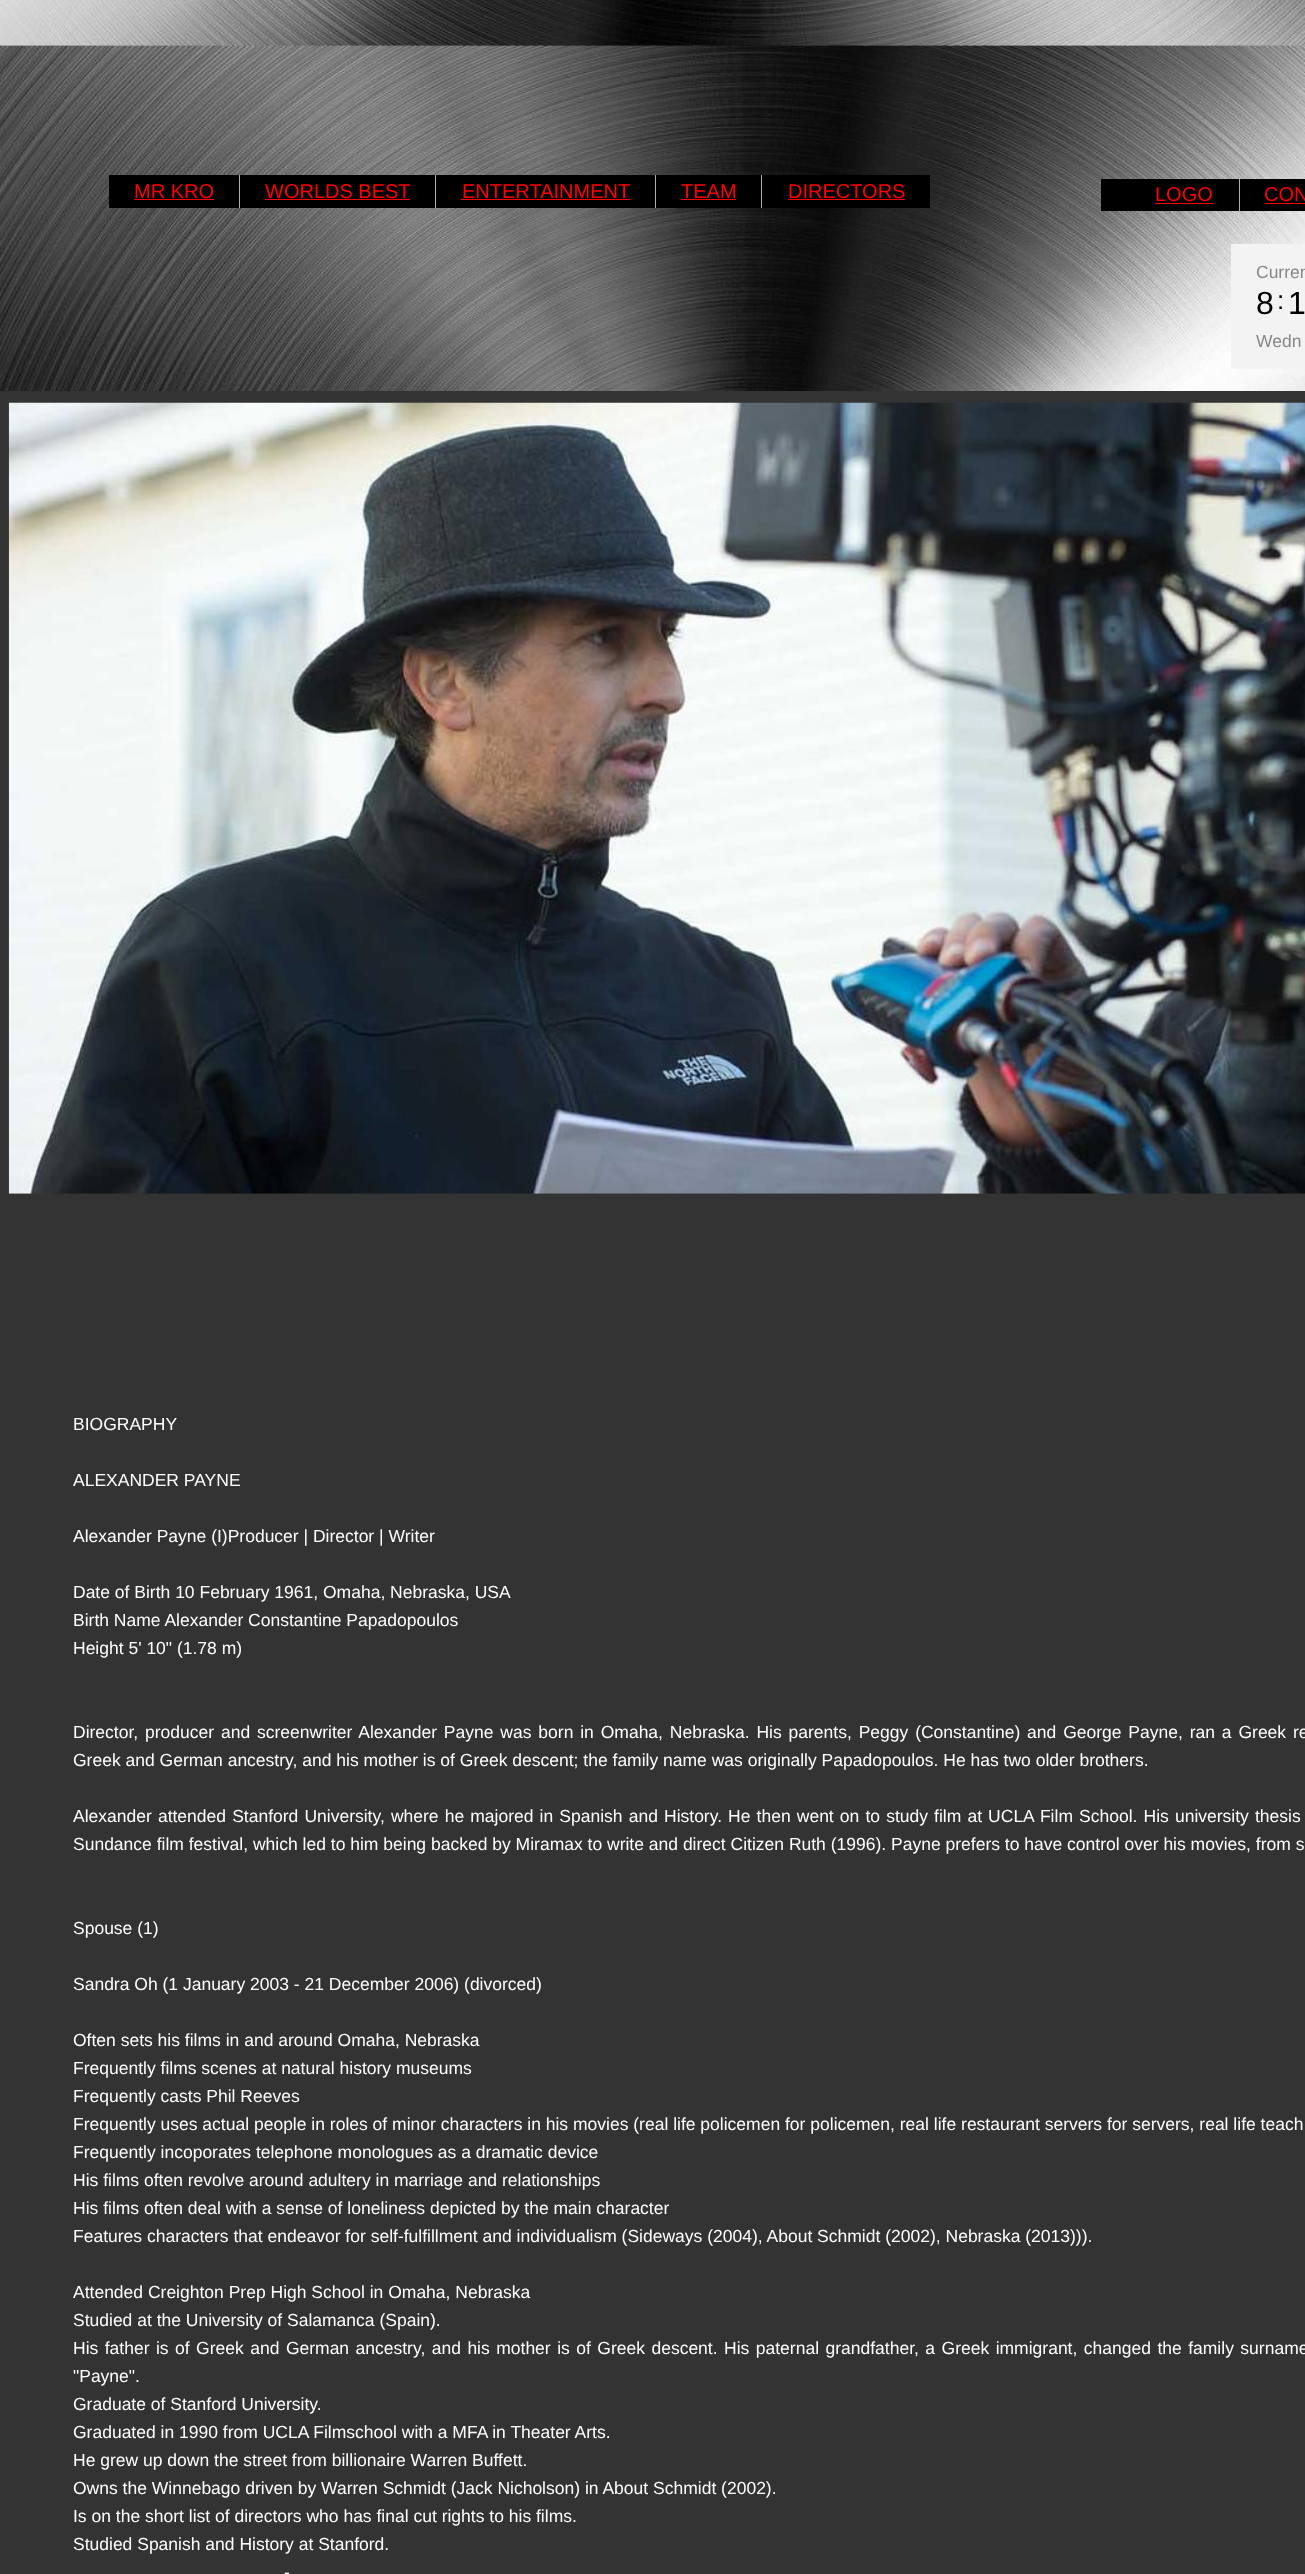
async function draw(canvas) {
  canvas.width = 1305;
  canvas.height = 2574;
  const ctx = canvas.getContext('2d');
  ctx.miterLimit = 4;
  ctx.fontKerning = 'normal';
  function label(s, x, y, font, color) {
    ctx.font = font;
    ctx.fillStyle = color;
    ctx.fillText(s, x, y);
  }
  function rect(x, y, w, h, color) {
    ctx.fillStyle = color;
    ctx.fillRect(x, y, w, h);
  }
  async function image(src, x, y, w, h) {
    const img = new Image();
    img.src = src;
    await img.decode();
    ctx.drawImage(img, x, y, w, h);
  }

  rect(0, 0, 1305, 2574, '#fff');
  await image('assets/img1.png', 0, 0, 1305, 391);
  rect(0, 391, 1305, 2183, '#333');
  rect(109, 175, 130, 33, '#000');
  rect(239, 175, 1, 33, '#aeaeae');
  label('MR KRO', 134, 198, '20px Liberation Sans', '#f00');
  rect(134, 199, 80, 1, '#f00');
  rect(240, 175, 195, 33, '#000');
  rect(435, 175, 1, 33, '#aeaeae');
  label('WORLDS BEST', 265, 198, '20px Liberation Sans', '#f00');
  rect(265, 199, 145, 1, '#f00');
  rect(436, 175, 219, 33, '#000');
  rect(655, 175, 1, 33, '#aeaeae');
  label('ENTERTAINMENT', 462, 198, '20px Liberation Sans', '#f00');
  rect(461, 199, 169, 1, '#f00');
  rect(656, 175, 274, 33, '#000');
  rect(761, 175, 1, 33, '#aeaeae');
  label('TEAM', 681, 198, '20px Liberation Sans', '#f00');
  rect(681, 199, 55, 1, '#f00');
  label('DIRECTORS', 788, 198, '20px Liberation Sans', '#f00');
  rect(788, 199, 117, 1, '#f00');
  rect(1101, 179, 138, 32, '#000');
  rect(1239, 179, 1, 32, '#aeaeae');
  label('LOGO', 1155, 201, '20px Liberation Sans', '#f00');
  rect(1155, 203, 59, 1, '#f00');
  rect(1240, 179, 65, 32, '#000');
  label('CON', 1264, 201, '20px Liberation Sans', '#f00');
  rect(1265, 203, 40, 1, '#f00');
  rect(1231, 244, 2, 125, '#f3f3f3');
  label('Curren', 1256, 278, '17.5px Liberation Sans', '#878787');
  label('8', 1256, 314, '32px Liberation Sans', '#000');
  label(':', 1277, 309, '26px Liberation Sans', '#000');
  label('1', 1288, 314, '32px Liberation Sans', '#000');
  label('Wedn', 1256, 347, '17.5px Liberation Sans', '#878787');
  await image('assets/img2.png', 8, 402, 1297, 792);
  label('BIOGRAPHY', 73, 1430, '17.5px Liberation Sans', '#fff');
  label('ALEXANDER PAYNE', 73, 1486, '17.5px Liberation Sans', '#fff');
  label('Alexander Payne (I)Producer | Director | Writer', 73, 1542, '17.5px Liberation Sans', '#fff');
  label('Date of Birth 10 February 1961, Omaha, Nebraska, USA', 73, 1598, '17.5px Liberation Sans', '#fff');
  label('Birth Name Alexander Constantine Papadopoulos', 73, 1626, '17.5px Liberation Sans', '#fff');
  label('Height 5\' 10" (1.78 m)', 73, 1654, '17.5px Liberation Sans', '#fff');
  ctx.wordSpacing = '2px';
  label('Director, producer and screenwriter Alexander Payne was born in Omaha, Nebraska. His parents, Peggy (Constantine) and George Payne, ran a Greek re', 73, 1738, '17.5px Liberation Sans', '#fff');
  ctx.wordSpacing = '0px';
  label('Greek and German ancestry, and his mother is of Greek descent; the family name was originally Papadopoulos. He has two older brothers.', 73, 1766, '17.5px Liberation Sans', '#fff');
  ctx.wordSpacing = '1.25px';
  label('Alexander attended Stanford University, where he majored in Spanish and History. He then went on to study film at UCLA Film School. His university thesis', 73, 1822, '17.5px Liberation Sans', '#fff');
  ctx.wordSpacing = '0px';
  label('Sundance film festival, which led to him being backed by Miramax to write and direct Citizen Ruth (1996). Payne prefers to have control over his movies, from s', 73, 1850, '17.5px Liberation Sans', '#fff');
  label('Spouse (1)', 73, 1934, '17.5px Liberation Sans', '#fff');
  label('Sandra Oh (1 January 2003 - 21 December 2006) (divorced)', 73, 1990, '17.5px Liberation Sans', '#fff');
  label('Often sets his films in and around Omaha, Nebraska', 73, 2046, '17.5px Liberation Sans', '#fff');
  label('Frequently films scenes at natural history museums', 73, 2074, '17.5px Liberation Sans', '#fff');
  label('Frequently casts Phil Reeves', 73, 2102, '17.5px Liberation Sans', '#fff');
  label('Frequently uses actual people in roles of minor characters in his movies (real life policemen for policemen, real life restaurant servers for servers, real life teach', 73, 2130, '17.5px Liberation Sans', '#fff');
  label('Frequently incoporates telephone monologues as a dramatic device', 73, 2158, '17.5px Liberation Sans', '#fff');
  label('His films often revolve around adultery in marriage and relationships', 73, 2186, '17.5px Liberation Sans', '#fff');
  label('His films often deal with a sense of loneliness depicted by the main character', 73, 2214, '17.5px Liberation Sans', '#fff');
  label('Features characters that endeavor for self-fulfillment and individualism (Sideways (2004), About Schmidt (2002), Nebraska (2013))).', 73, 2242, '17.5px Liberation Sans', '#fff');
  label('Attended Creighton Prep High School in Omaha, Nebraska', 73, 2298, '17.5px Liberation Sans', '#fff');
  label('Studied at the University of Salamanca (Spain).', 73, 2326, '17.5px Liberation Sans', '#fff');
  ctx.wordSpacing = '1.6px';
  label('His father is of Greek and German ancestry, and his mother is of Greek descent. His paternal grandfather, a Greek immigrant, changed the family surname', 73, 2354, '17.5px Liberation Sans', '#fff');
  ctx.wordSpacing = '0px';
  label('"Payne".', 73, 2382, '17.5px Liberation Sans', '#fff');
  label('Graduate of Stanford University.', 73, 2410, '17.5px Liberation Sans', '#fff');
  label('Graduated in 1990 from UCLA Filmschool with a MFA in Theater Arts.', 73, 2438, '17.5px Liberation Sans', '#fff');
  label('He grew up down the street from billionaire Warren Buffett.', 73, 2466, '17.5px Liberation Sans', '#fff');
  label('Owns the Winnebago driven by Warren Schmidt (Jack Nicholson) in About Schmidt (2002).', 73, 2494, '17.5px Liberation Sans', '#fff');
  label('Is on the short list of directors who has final cut rights to his films.', 73, 2522, '17.5px Liberation Sans', '#fff');
  label('Studied Spanish and History at Stanford.', 73, 2550, '17.5px Liberation Sans', '#fff');
  label('-', 284, 2578, '17.5px Liberation Sans', '#fff');
}

draw(document.querySelector('canvas'));
